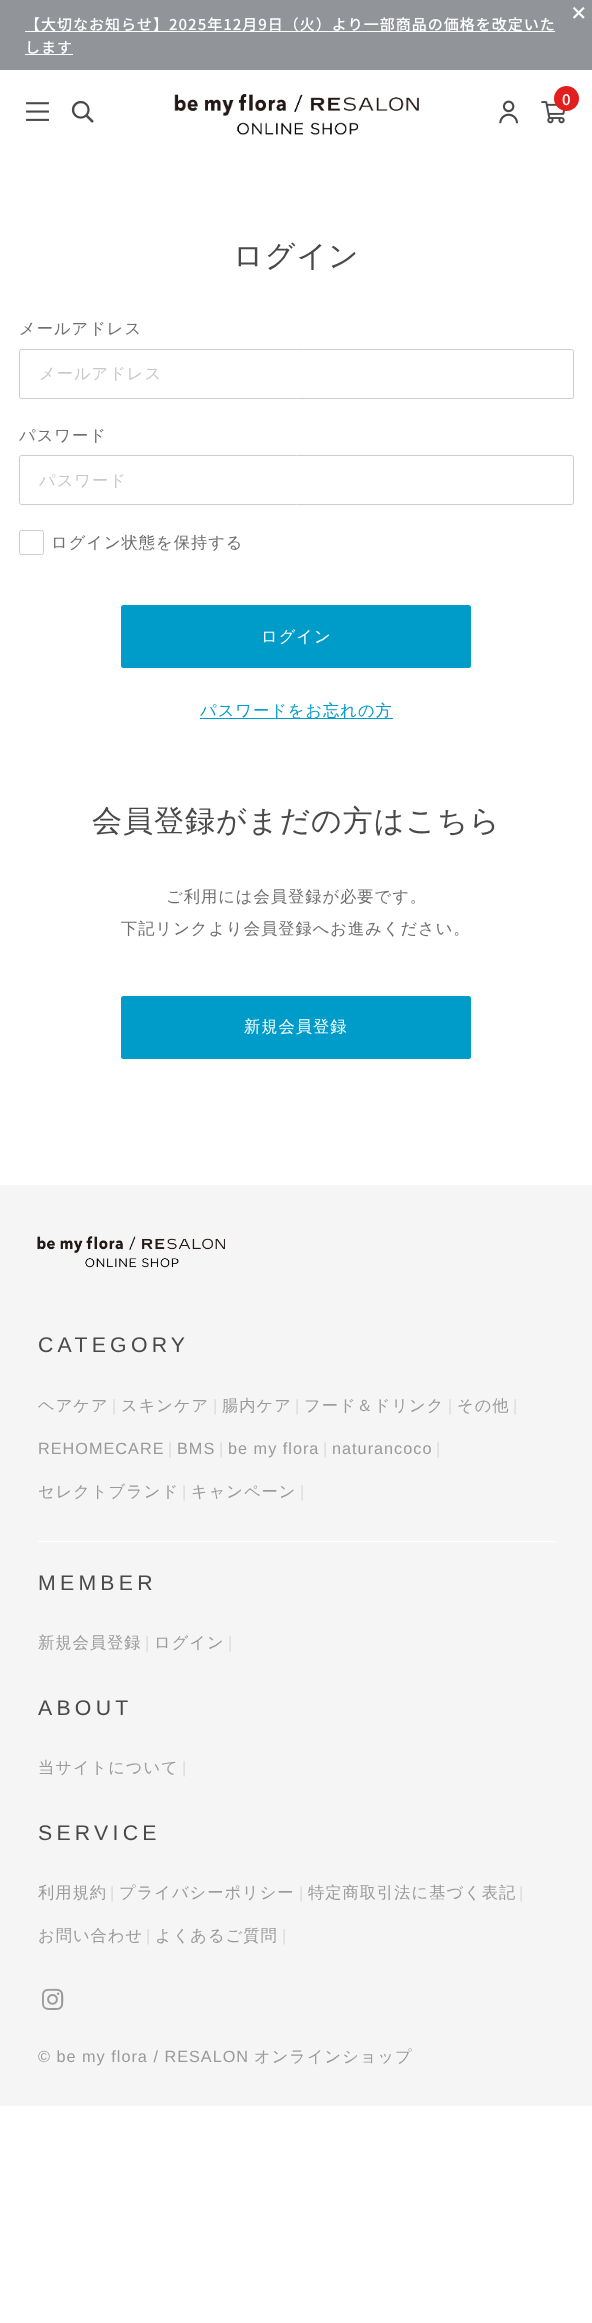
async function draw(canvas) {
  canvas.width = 592;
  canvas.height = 2323;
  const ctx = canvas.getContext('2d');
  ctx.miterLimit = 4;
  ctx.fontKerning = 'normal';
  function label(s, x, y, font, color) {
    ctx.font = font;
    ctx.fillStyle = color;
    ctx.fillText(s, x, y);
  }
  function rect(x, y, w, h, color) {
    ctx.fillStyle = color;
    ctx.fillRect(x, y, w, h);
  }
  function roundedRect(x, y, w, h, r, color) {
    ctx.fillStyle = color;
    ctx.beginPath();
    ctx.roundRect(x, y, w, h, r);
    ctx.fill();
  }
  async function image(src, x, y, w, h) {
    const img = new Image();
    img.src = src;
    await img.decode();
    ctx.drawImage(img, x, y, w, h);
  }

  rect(0, 0, 592, 2323, '#fff');
  rect(0, 0, 592, 70, '#919498');
  await image('assets/img1.png', 573, 7, 12, 12);
  rect(25, 31, 530, 1, '#fff');
  ctx.letterSpacing = '1px';
  label('【大切なお知らせ】2025年12月9日（火）より一部商品の価格を改定いた', 25, 30, '100 15px Noto Sans JP', '#fff');
  label('します', 25, 53, '100 15px Noto Sans JP', '#fff');
  rect(25, 54, 48, 1, '#fff');
  await image('assets/img2.png', 26, 102, 23, 19);
  await image('assets/img3.png', 71, 100, 23, 23);
  await image('assets/img4.png', 174, 94, 245, 41);
  await image('assets/img5.png', 499, 100, 19, 24);
  await image('assets/img6.png', 541, 101, 25, 23);
  ctx.fillStyle = '#e21e1e';
  ctx.beginPath();
  ctx.arc(566.5, 98.5, 12.5, 0, 2 * Math.PI);
  ctx.fill();
  label('0', 562, 105, '100 15px Noto Sans JP', '#fff');
  label('ログイン', 233, 266, '500 30px WenQuanYi Zen Hei', '#494949');
  label('メールアドレス', 19, 334, '500 16.25px WenQuanYi Zen Hei', '#6f6d6d');
  ctx.beginPath();
  ctx.roundRect(19.5, 349.5, 554, 49, 2);
  ctx.strokeStyle = '#ccc';
  ctx.stroke();
  label('メールアドレス', 39, 379, '500 16.25px WenQuanYi Zen Hei', '#c8c8c8');
  label('パスワード', 19, 441, '500 16.25px WenQuanYi Zen Hei', '#6f6d6d');
  ctx.beginPath();
  ctx.roundRect(19.5, 455.5, 554, 49, 2);
  ctx.stroke();
  label('パスワード', 39, 486, '500 16.25px WenQuanYi Zen Hei', '#c8c8c8');
  ctx.beginPath();
  ctx.roundRect(19.5, 530.5, 24, 24, 2);
  ctx.stroke();
  label('ログイン状態を保持する', 51, 548, '500 16.25px WenQuanYi Zen Hei', '#6f6d6d');
  roundedRect(121, 605, 350, 63, 2.5, '#009cc9');
  label('ログイン', 261, 642, '500 16.25px WenQuanYi Zen Hei', '#fff');
  rect(200, 718, 193, 1, '#009cc9');
  label('パスワードをお忘れの方', 200, 716, '500 16.25px WenQuanYi Zen Hei', '#009cc9');
  label('会員登録がまだの方はこちら', 92, 831, '500 30px WenQuanYi Zen Hei', '#494949');
  label('ご利用には会員登録が必要です。', 166, 902, '500 16.25px WenQuanYi Zen Hei', '#6f6d6d');
  label('下記リンクより会員登録へお進みください。', 121, 934, '500 16.25px WenQuanYi Zen Hei', '#6f6d6d');
  roundedRect(121, 996, 350, 63, 2.5, '#009cc9');
  label('新規会員登録', 244, 1032, '500 16.25px WenQuanYi Zen Hei', '#fff');
  rect(0, 1185, 592, 921, '#f5f5f5');
  await image('assets/img7.png', 37, 1236, 188, 32);
  rect(38, 1541, 517, 1, '#fff');
  ctx.letterSpacing = '4.25px';
  label('CATEGORY', 38, 1352, '21.25px Liberation Sans', '#494949');
  ctx.letterSpacing = '1px';
  label('ヘアケア', 38, 1411, '500 16.25px WenQuanYi Zen Hei', '#9a9a9a');
  label('|', 112, 1411, '16.25px Liberation Sans', '#d8dddf');
  label('スキンケア', 121, 1411, '500 16.25px WenQuanYi Zen Hei', '#9a9a9a');
  label('|', 213, 1411, '16.25px Liberation Sans', '#d8dddf');
  label('腸内ケア', 222, 1411, '500 16.25px WenQuanYi Zen Hei', '#9a9a9a');
  label('|', 295, 1411, '16.25px Liberation Sans', '#d8dddf');
  label('フード＆ドリンク', 304, 1411, '500 16.25px WenQuanYi Zen Hei', '#9a9a9a');
  label('|', 448, 1411, '16.25px Liberation Sans', '#d8dddf');
  label('その他', 457, 1411, '500 16.25px WenQuanYi Zen Hei', '#9a9a9a');
  label('|', 513, 1411, '16.25px Liberation Sans', '#d8dddf');
  label('REHOMECARE', 38, 1454, '16.25px Liberation Sans', '#9a9a9a');
  label('|', 168, 1454, '16.25px Liberation Sans', '#d8dddf');
  label('BMS', 177, 1454, '16.25px Liberation Sans', '#9a9a9a');
  label('|', 219, 1454, '16.25px Liberation Sans', '#d8dddf');
  label('be my flora', 228, 1454, '16.25px Liberation Sans', '#9a9a9a');
  label('|', 323, 1454, '16.25px Liberation Sans', '#d8dddf');
  label('naturancoco', 332, 1454, '16.25px Liberation Sans', '#9a9a9a');
  label('|', 436, 1454, '16.25px Liberation Sans', '#d8dddf');
  label('セレクトブランド', 38, 1497, '500 16.25px WenQuanYi Zen Hei', '#9a9a9a');
  label('|', 182, 1497, '16.25px Liberation Sans', '#d8dddf');
  label('キャンペーン', 191, 1497, '500 16.25px WenQuanYi Zen Hei', '#9a9a9a');
  label('|', 300, 1497, '16.25px Liberation Sans', '#d8dddf');
  ctx.letterSpacing = '4.25px';
  label('MEMBER', 38, 1590, '21.25px Liberation Sans', '#494949');
  ctx.letterSpacing = '1px';
  label('新規会員登録', 38, 1648, '500 16.25px WenQuanYi Zen Hei', '#9a9a9a');
  label('|', 145, 1648, '16.25px Liberation Sans', '#d8dddf');
  label('ログイン', 154, 1648, '500 16.25px WenQuanYi Zen Hei', '#9a9a9a');
  label('|', 228, 1648, '16.25px Liberation Sans', '#d8dddf');
  ctx.letterSpacing = '4.25px';
  label('ABOUT', 38, 1715, '21.25px Liberation Sans', '#494949');
  ctx.letterSpacing = '1px';
  label('当サイトについて', 38, 1773, '500 16.25px WenQuanYi Zen Hei', '#9a9a9a');
  label('|', 182, 1773, '16.25px Liberation Sans', '#d8dddf');
  ctx.letterSpacing = '4.25px';
  label('SERVICE', 38, 1840, '21.25px Liberation Sans', '#494949');
  ctx.letterSpacing = '1px';
  label('利用規約', 38, 1898, '500 16.25px WenQuanYi Zen Hei', '#9a9a9a');
  label('|', 110, 1898, '16.25px Liberation Sans', '#d8dddf');
  label('プライバシーポリシー', 119, 1898, '500 16.25px WenQuanYi Zen Hei', '#9a9a9a');
  label('|', 299, 1898, '16.25px Liberation Sans', '#d8dddf');
  label('特定商取引法に基づく表記', 308, 1898, '500 16.25px WenQuanYi Zen Hei', '#9a9a9a');
  label('|', 519, 1898, '16.25px Liberation Sans', '#d8dddf');
  label('お問い合わせ', 38, 1941, '500 16.25px WenQuanYi Zen Hei', '#9a9a9a');
  label('|', 146, 1941, '16.25px Liberation Sans', '#d8dddf');
  label('よくあるご質問', 155, 1941, '500 16.25px WenQuanYi Zen Hei', '#9a9a9a');
  label('|', 282, 1941, '16.25px Liberation Sans', '#d8dddf');
  await image('assets/img8.png', 42, 1988, 22, 22);
  label('© be my flora / RESALON', 38, 2062, '16.25px Liberation Sans', '#9a9a9a');
  label('オンラインショップ', 254, 2062, '500 16.25px WenQuanYi Zen Hei', '#9a9a9a');
}

draw(document.querySelector('canvas'));
